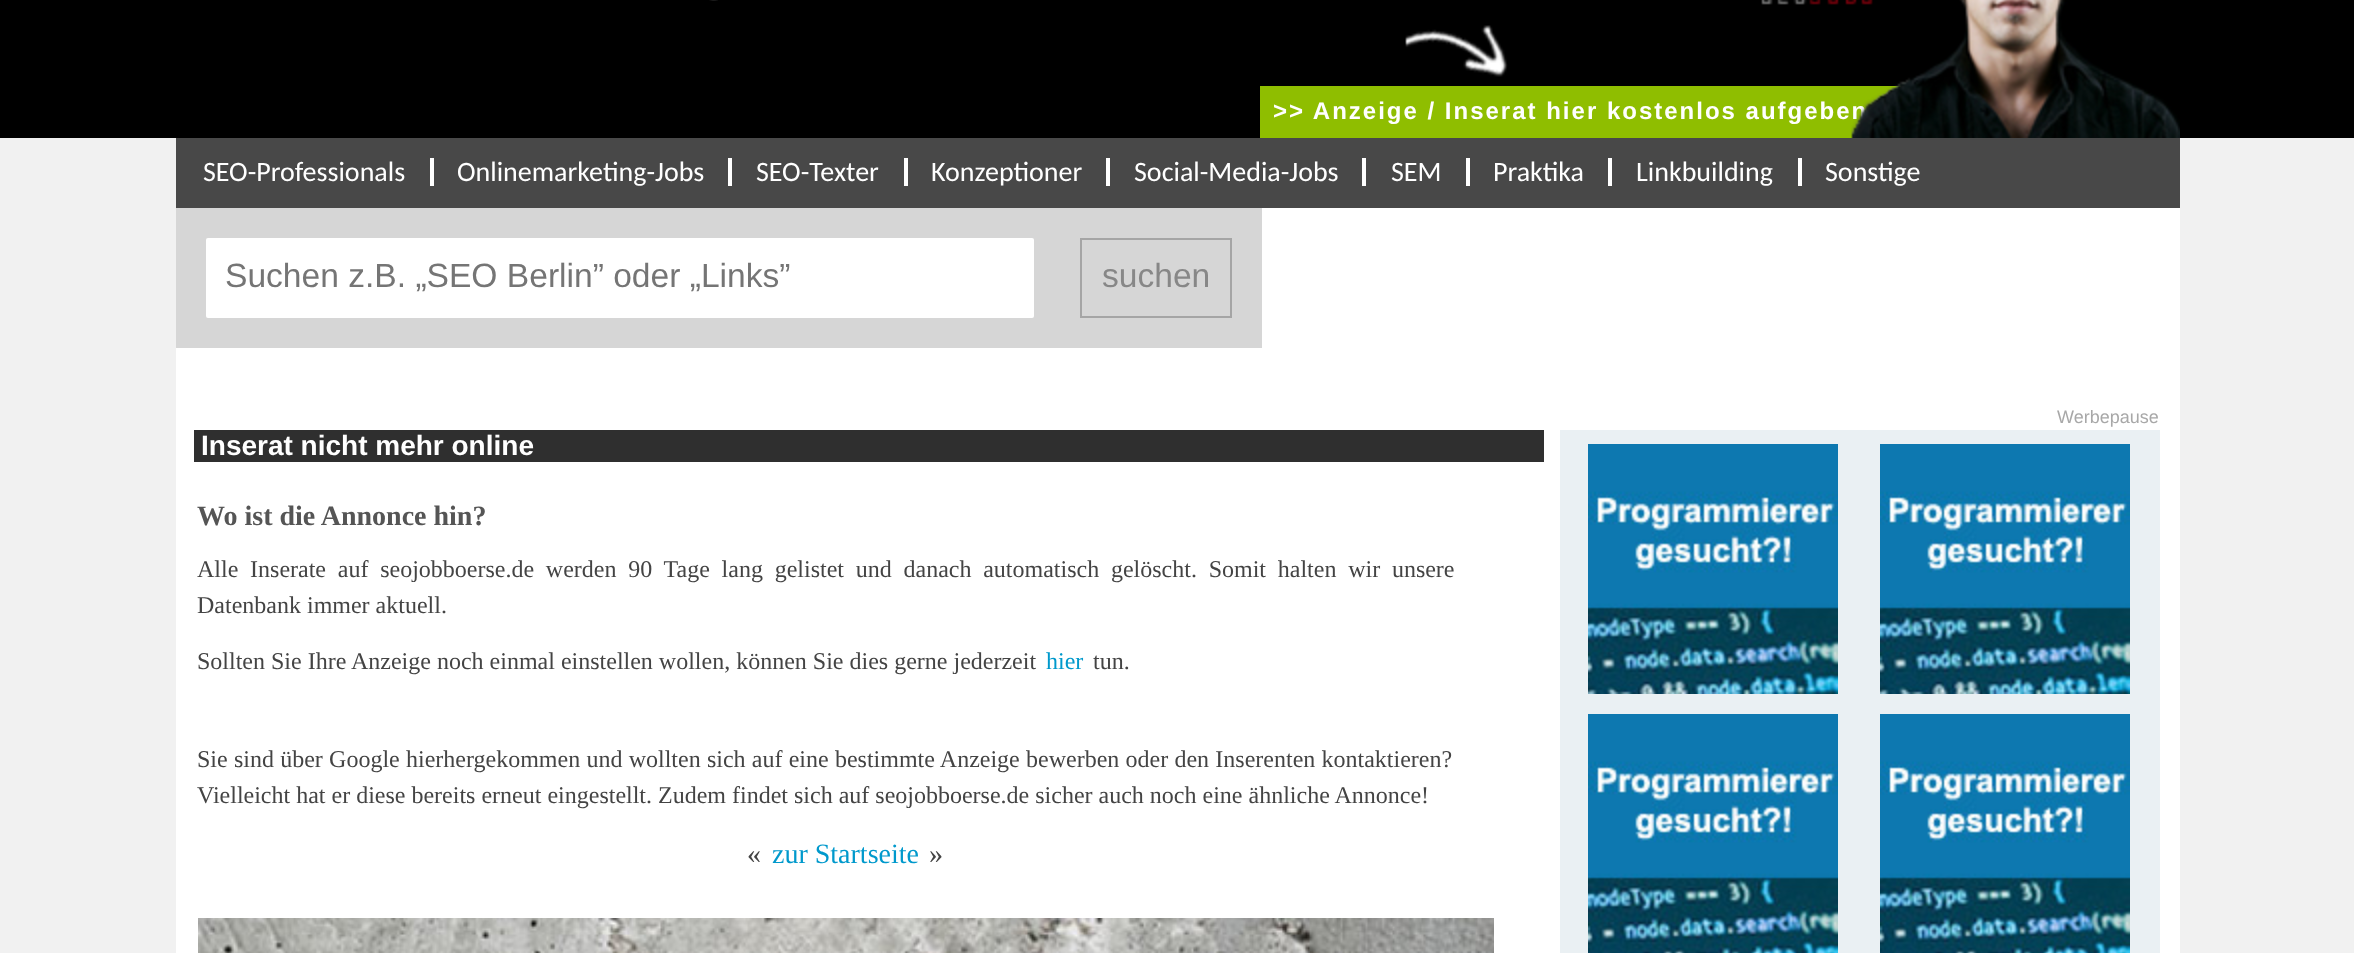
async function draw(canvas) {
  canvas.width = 2354;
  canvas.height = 953;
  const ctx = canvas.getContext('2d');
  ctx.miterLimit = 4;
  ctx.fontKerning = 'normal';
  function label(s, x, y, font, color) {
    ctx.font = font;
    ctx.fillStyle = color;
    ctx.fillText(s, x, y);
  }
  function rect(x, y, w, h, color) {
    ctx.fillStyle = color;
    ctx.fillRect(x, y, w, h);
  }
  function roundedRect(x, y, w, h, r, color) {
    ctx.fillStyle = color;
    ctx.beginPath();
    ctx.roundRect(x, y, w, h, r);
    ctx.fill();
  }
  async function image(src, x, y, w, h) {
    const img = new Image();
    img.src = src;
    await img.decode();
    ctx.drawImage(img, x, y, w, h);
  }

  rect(0, 0, 2354, 953, '#f1f1f1');
  rect(0, 0, 2354, 138, '#000');
  await image('assets/img1.png', 709, 0, 9, 1);
  await image('assets/img2.png', 1405, 25, 103, 52);
  rect(1260, 86, 641, 52, '#8fbe00');
  ctx.letterSpacing = '2px';
  label('>> Anzeige / Inserat hier kostenlos aufgeben', 1273, 119, 'bold 24px Liberation Sans', '#fff');
  await image('assets/img3.png', 1761, 0, 419, 138);
  rect(176, 208, 2004, 745, '#fff');
  rect(176, 138, 2004, 70, '#484848');
  ctx.letterSpacing = '0px';
  label('SEO-Professionals', 203, 181, '28px Carlito', '#fff');
  rect(430, 158, 4, 28, '#fff');
  label('Onlinemarketing-Jobs', 457, 181, '28px Carlito', '#fff');
  rect(728, 158, 4, 28, '#fff');
  label('SEO-Texter', 756, 181, '28px Carlito', '#fff');
  rect(904, 158, 4, 28, '#fff');
  label('Konzeptioner', 931, 181, '28px Carlito', '#fff');
  rect(1106, 158, 4, 28, '#fff');
  label('Social-Media-Jobs', 1134, 181, '28px Carlito', '#fff');
  rect(1362, 158, 4, 28, '#fff');
  label('SEM', 1391, 181, '28px Carlito', '#fff');
  rect(1466, 158, 4, 28, '#fff');
  label('Praktika', 1493, 181, '28px Carlito', '#fff');
  rect(1608, 158, 4, 28, '#fff');
  label('Linkbuilding', 1636, 181, '28px Carlito', '#fff');
  rect(1798, 158, 4, 28, '#fff');
  label('Sonstige', 1825, 181, '28px Carlito', '#fff');
  rect(176, 208, 1086, 140, '#d6d6d6');
  roundedRect(206, 238, 828, 80, 2, '#fff');
  label('Suchen z.B. „SEO Berlin” oder „Links”', 225, 287, '33.6px Liberation Sans', '#757575');
  ctx.strokeStyle = '#a5a5a5';
  ctx.lineWidth = 2;
  ctx.strokeRect(1081, 239, 150, 78);
  label('suchen', 1102, 287, '33.6px Liberation Sans', '#878787');
  rect(1560, 430, 600, 523, '#eaf0f3');
  label('Werbepause', 2057, 423, '18px Liberation Sans', '#a8a8a8');
  await image('assets/img4.png', 1588, 444, 250, 250);
  await image('assets/img4.png', 1880, 444, 250, 250);
  await image('assets/img5.png', 1588, 714, 250, 239);
  await image('assets/img5.png', 1880, 714, 250, 239);
  rect(194, 430, 1350, 32, '#2f2f2f');
  label('Inserat nicht mehr online', 201, 455, 'bold 28px Liberation Sans', '#fff');
  label('Wo ist die Annonce hin?', 197, 525, 'bold 28px Liberation Serif', '#555');
  ctx.wordSpacing = '5.75px';
  label('Alle Inserate auf seojobboerse.de werden 90 Tage lang gelistet und danach automatisch gelöscht. Somit halten wir unsere', 197, 577, '24px Liberation Serif', '#444');
  ctx.wordSpacing = '0px';
  label('Datenbank immer aktuell.', 197, 613, '24px Liberation Serif', '#444');
  label('Sollten Sie Ihre Anzeige noch einmal einstellen wollen, können Sie dies gerne jederzeit', 197, 669, '24px Liberation Serif', '#444');
  label('hier', 1046, 669, '24px Liberation Serif', '#09c');
  label('tun.', 1093, 669, '24px Liberation Serif', '#444');
  ctx.wordSpacing = '0.25px';
  label('Sie sind über Google hierhergekommen und wollten sich auf eine bestimmte Anzeige bewerben oder den Inserenten kontaktieren?', 197, 767, '24px Liberation Serif', '#444');
  ctx.wordSpacing = '0px';
  label('Vielleicht hat er diese bereits erneut eingestellt. Zudem findet sich auf seojobboerse.de sicher auch noch eine ähnliche Annonce!', 197, 803, '24px Liberation Serif', '#444');
  label('«', 747, 863, '28px Liberation Serif', '#444');
  label('zur Startseite', 772, 863, '28px Liberation Serif', '#09c');
  label('»', 929, 863, '28px Liberation Serif', '#444');
  await image('assets/img6.png', 198, 918, 1296, 35);
}

draw(document.querySelector('canvas'));
